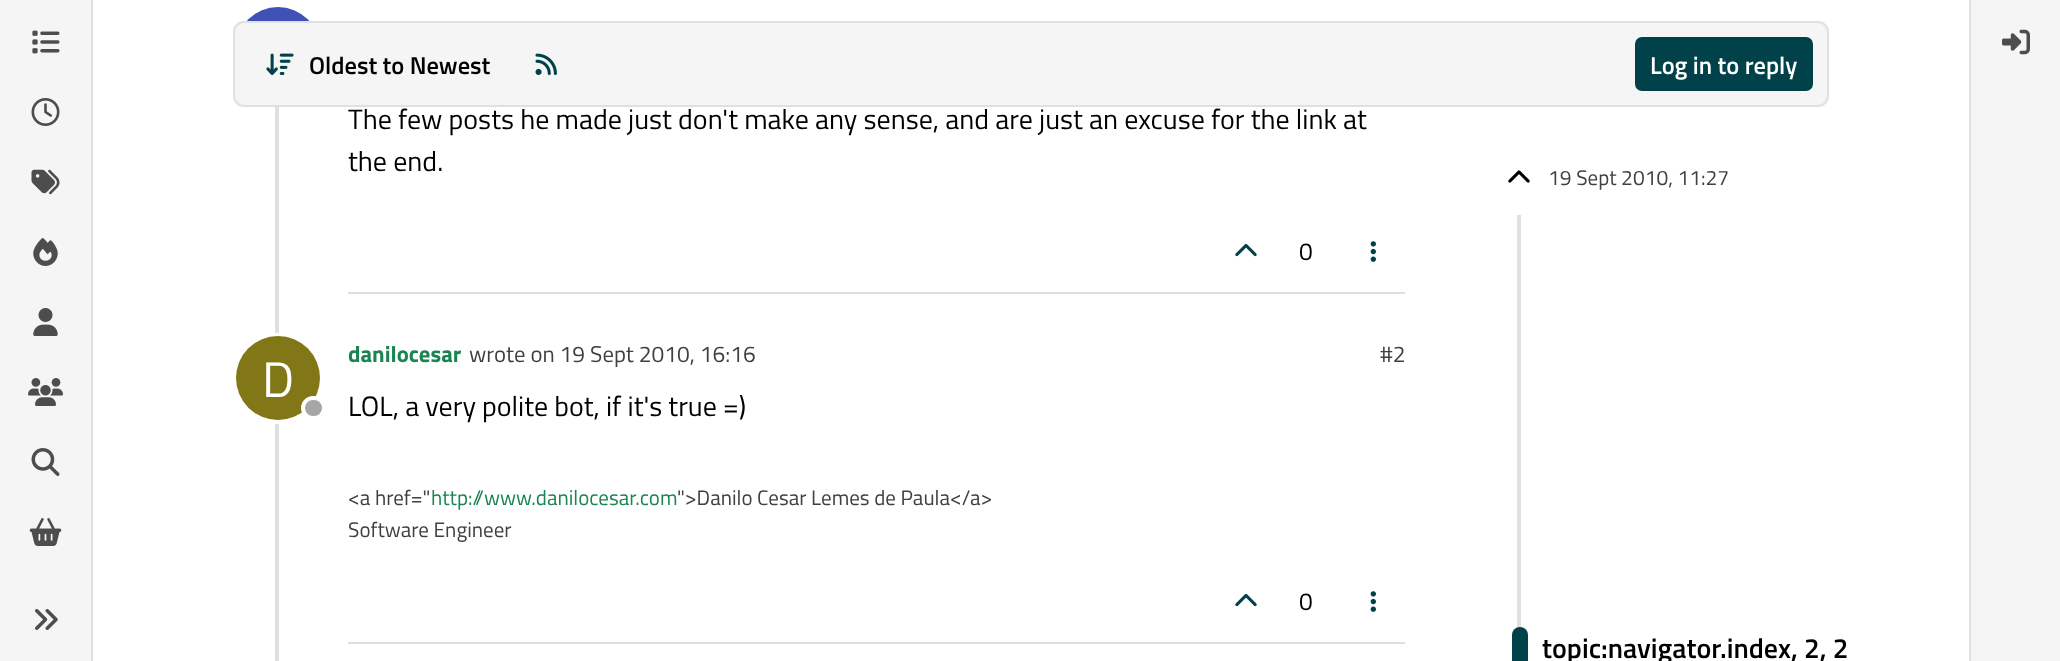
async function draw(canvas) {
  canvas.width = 2060;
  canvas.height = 661;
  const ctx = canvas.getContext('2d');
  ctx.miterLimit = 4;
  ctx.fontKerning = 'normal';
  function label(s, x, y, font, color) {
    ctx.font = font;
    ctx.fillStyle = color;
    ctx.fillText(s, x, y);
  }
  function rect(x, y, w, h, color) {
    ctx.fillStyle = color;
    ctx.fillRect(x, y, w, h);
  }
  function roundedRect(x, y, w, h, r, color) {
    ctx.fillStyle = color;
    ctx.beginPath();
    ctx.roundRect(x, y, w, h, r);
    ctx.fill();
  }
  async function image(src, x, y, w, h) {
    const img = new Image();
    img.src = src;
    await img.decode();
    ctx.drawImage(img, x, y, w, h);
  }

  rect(0, 0, 2060, 661, '#fff');
  rect(0, 0, 91, 661, '#f5f5f5');
  rect(91, 0, 2, 661, '#e0e0e0');
  await image('assets/img1.png', 32, 30, 28, 24);
  await image('assets/img2.png', 31, 98, 29, 28);
  await image('assets/img3.png', 31, 169, 29, 26);
  await image('assets/img4.png', 33, 238, 25, 28);
  await image('assets/img5.png', 33, 308, 25, 28);
  await image('assets/img6.png', 28, 378, 35, 28);
  await image('assets/img7.png', 31, 448, 29, 28);
  await image('assets/img8.png', 29, 518, 33, 28);
  await image('assets/img9.png', 35, 609, 23, 21);
  ctx.fillStyle = '#3f51b5';
  ctx.beginPath();
  ctx.arc(278, 49, 42, 0, 2 * Math.PI);
  ctx.fill();
  ctx.fillStyle = '#f5f5f5';
  ctx.beginPath();
  ctx.roundRect(234, 22, 1594, 84, 10);
  ctx.fill();
  ctx.strokeStyle = '#e0e0e0';
  ctx.lineWidth = 2;
  ctx.stroke();
  await image('assets/img10.png', 266, 53, 28, 22);
  label('Oldest to Newest', 309, 74, '600 24.5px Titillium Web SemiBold', '#000');
  await image('assets/img11.png', 535, 53, 22, 22);
  ctx.fillStyle = '#00414a';
  ctx.beginPath();
  ctx.roundRect(1636, 38, 176, 52, 6);
  ctx.fill();
  ctx.strokeStyle = '#00414a';
  ctx.stroke();
  label('Log in to reply', 1650, 74, '600 24.5px Titillium Web SemiBold', '#fff');
  rect(275, 107, 4, 554, '#e0e0e0');
  label('The few posts he made just don\'t make any sense, and are just an excuse for the link at', 348, 129, '28px Titillium Web', '#000');
  label('the end.', 348, 171, '28px Titillium Web', '#000');
  rect(348, 292, 1057, 2, '#e0e0e0');
  await image('assets/img12.png', 1235, 243, 22, 14);
  label('0', 1299, 260, '24.5px Titillium Web', '#000');
  await image('assets/img13.png', 1370, 241, 6, 21);
  ctx.beginPath();
  ctx.arc(278.5, 378.5, 43.5, 0, 2 * Math.PI);
  ctx.strokeStyle = '#fff';
  ctx.lineWidth = 4;
  ctx.stroke();
  ctx.fillStyle = '#827717';
  ctx.beginPath();
  ctx.arc(278, 378, 42, 0, 2 * Math.PI);
  ctx.fill();
  label('D', 262, 397, '50px Titillium Web', '#fff');
  ctx.fillStyle = '#a6a6a6';
  ctx.beginPath();
  ctx.roundRect(303, 398, 21, 20, 10);
  ctx.fill();
  ctx.stroke();
  label('danilocesar', 348, 362, 'bold 22.75px Titillium Web', '#1a8550');
  label('wrote on 19 Sept 2010, 16:16', 469, 362, '22.75px Titillium Web', '#404040');
  label('#2', 1380, 362, '22.75px Titillium Web', '#404040');
  label('LOL, a very polite bot, if it\'s true =)', 348, 416, '28px Titillium Web', '#000');
  rect(348, 642, 1057, 2, '#e0e0e0');
  label('<a href="', 348, 505, '21px Titillium Web', '#404040');
  label('http://www.danilocesar.com', 431, 505, '21px Titillium Web', '#1a8550');
  label('">Danilo Cesar Lemes de Paula<\/a>', 677, 505, '21px Titillium Web', '#404040');
  label('Software Engineer', 348, 537, '21px Titillium Web', '#404040');
  await image('assets/img12.png', 1235, 593, 22, 14);
  label('0', 1299, 610, '24.5px Titillium Web', '#000');
  await image('assets/img13.png', 1370, 591, 6, 21);
  await image('assets/img14.png', 1508, 170, 22, 13);
  label('19 Sept 2010, 11:27', 1548, 185, '21px Titillium Web', '#404040');
  rect(1517, 215, 4, 413, '#e0e0e0');
  roundedRect(1512, 627, 16, 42, 8, '#00414a');
  label('topic:navigator.index, 2, 2', 1542, 658, '600 28px Titillium Web SemiBold', '#000');
  rect(1971, 0, 89, 661, '#f5f5f5');
  rect(1969, 0, 2, 661, '#e0e0e0');
  await image('assets/img15.png', 2002, 29, 28, 26);
}

draw(document.querySelector('canvas'));
